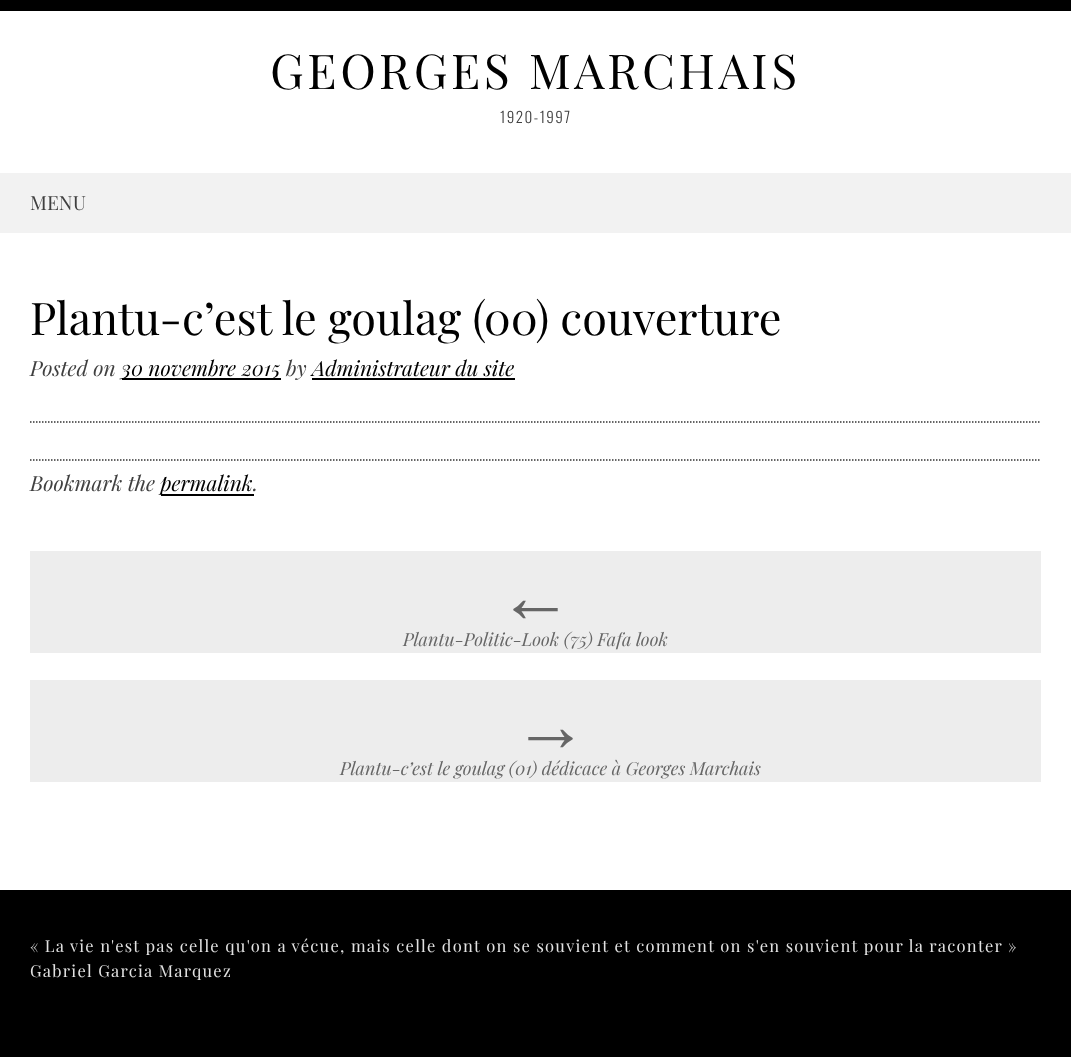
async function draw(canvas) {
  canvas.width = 1071;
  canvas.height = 1057;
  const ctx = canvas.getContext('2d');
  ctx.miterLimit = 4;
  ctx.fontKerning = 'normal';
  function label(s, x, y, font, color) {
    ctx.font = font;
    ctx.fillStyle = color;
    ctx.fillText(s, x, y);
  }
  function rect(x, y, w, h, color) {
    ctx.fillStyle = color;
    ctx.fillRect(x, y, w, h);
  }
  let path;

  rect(0, 0, 1071, 1057, '#fff');
  rect(0, 0, 1071, 11, '#000');
  ctx.letterSpacing = '3.6px';
  label('GEORGES MARCHAIS', 270, 89, '48px Playfair Display', '#000');
  ctx.letterSpacing = '1.5px';
  label('1920-1997', 500, 123, '300 15px Oswald', '#404040');
  rect(0, 173, 1071, 60, '#f2f2f2');
  ctx.letterSpacing = '0px';
  label('MENU', 30, 210, '19.5px Playfair Display', '#404040');
  path = new Path2D('M30 422H1041');
  ctx.strokeStyle = '#333';
  ctx.lineWidth = 1.5;
  ctx.setLineDash([1.5, 1.5]);
  ctx.stroke(path);
  label('Plantu-c’est le goulag (00) couverture', 30, 335, '45px Playfair Display', '#000');
  label('Posted on', 30, 376, 'italic 21px Playfair Display', '#404040');
  rect(122, 378, 159, 2, '#000');
  label('30 novembre 2015', 121, 376, 'italic 21px Playfair Display', '#000');
  label('by', 286, 376, 'italic 21px Playfair Display', '#404040');
  label('Administrateur du site', 312, 376, 'italic 21px Playfair Display', '#000');
  rect(312, 378, 203, 2, '#000');
  path = new Path2D('M30 460H1041');
  ctx.stroke(path);
  label('Bookmark the', 30, 491, 'italic 21px Playfair Display', '#404040');
  rect(161, 494, 93, 2, '#000');
  label('permalink', 160, 491, 'italic 21px Playfair Display', '#000');
  label('.', 253, 491, 'italic 21px Playfair Display', '#404040');
  rect(30, 551, 1011, 102, '#ededed');
  label('←', 498, 622, 'italic 75px Liberation Sans', '#666');
  label('Plantu-Politic-Look (75) Fafa look', 403, 646, 'italic 18px Playfair Display', '#666');
  rect(30, 680, 1011, 102, '#ededed');
  label('→', 513, 751, 'italic 75px Liberation Sans', '#666');
  label('Plantu-c’est le goulag (01) dédicace à Georges Marchais', 340, 775, 'italic 18px Playfair Display', '#666');
  rect(0, 890, 1071, 167, '#000');
  ctx.letterSpacing = '1.24px';
  label('« La vie n\'est pas celle qu\'on a vécue, mais celle dont on se souvient et comment on s\'en souvient pour la raconter »', 30, 952, '16.5px Playfair Display', '#e1e1e1');
  label('Gabriel Garcia Marquez', 30, 977, '16.5px Playfair Display', '#e1e1e1');
}

draw(document.querySelector('canvas'));
